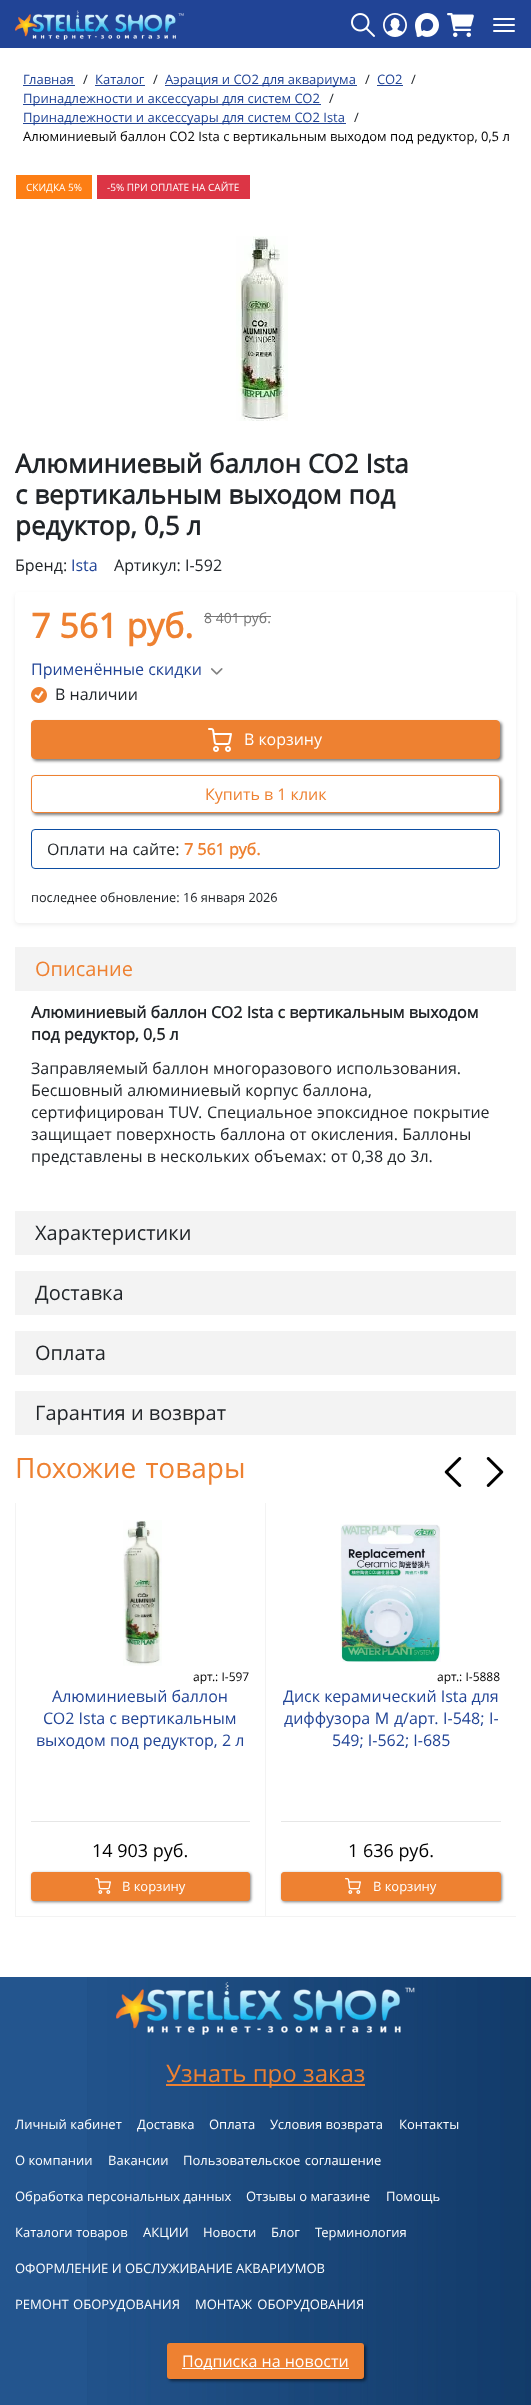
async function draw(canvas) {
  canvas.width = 531;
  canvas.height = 2405;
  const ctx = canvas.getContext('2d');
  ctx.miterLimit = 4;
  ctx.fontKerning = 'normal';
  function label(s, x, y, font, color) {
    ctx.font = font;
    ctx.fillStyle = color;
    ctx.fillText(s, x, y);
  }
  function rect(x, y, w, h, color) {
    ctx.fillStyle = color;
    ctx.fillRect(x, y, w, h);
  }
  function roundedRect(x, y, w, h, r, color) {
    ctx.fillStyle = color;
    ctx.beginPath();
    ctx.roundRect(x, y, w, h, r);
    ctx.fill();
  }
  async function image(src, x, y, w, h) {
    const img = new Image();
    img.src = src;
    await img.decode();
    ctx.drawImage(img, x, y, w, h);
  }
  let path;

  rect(0, 0, 531, 2405, '#fff');
  rect(0, 0, 531, 48, '#214496');
  await image('assets/img1.png', 15, 10, 169, 30);
  await image('assets/img2.png', 351, 13, 24, 24);
  await image('assets/img3.png', 383, 13, 24, 24);
  await image('assets/img4.png', 415, 13, 24, 24);
  await image('assets/img5.png', 447, 13, 27, 24);
  roundedRect(493, 24, 22, 2, 1, '#fff');
  roundedRect(493, 18, 22, 2, 1, '#fff');
  roundedRect(493, 30, 22, 2, 1, '#fff');
  label('Главная', 23, 84, '13px Open Sans', '#214496');
  rect(23, 85, 52, 1, '#214496');
  label('/', 83, 84, '13px Open Sans', '#212529');
  label('Каталог', 95, 84, '13px Open Sans', '#214496');
  rect(95, 85, 50, 1, '#214496');
  label('/', 153, 84, '13px Open Sans', '#212529');
  rect(165, 85, 192, 1, '#214496');
  label('Аэрация и СО2 для аквариума', 165, 84, '13px Open Sans', '#214496');
  label('/', 365, 84, '13px Open Sans', '#212529');
  label('CO2', 377, 84, '13px Open Sans', '#214496');
  rect(377, 85, 26, 1, '#214496');
  label('/', 411, 84, '13px Open Sans', '#212529');
  rect(23, 104, 298, 1, '#214496');
  label('Принадлежности и аксессуары для систем СО2', 23, 103, '13px Open Sans', '#214496');
  label('/', 329, 103, '13px Open Sans', '#212529');
  rect(23, 123, 323, 1, '#214496');
  label('Принадлежности и аксессуары для систем CO2 Ista', 23, 122, '13px Open Sans', '#214496');
  label('/', 354, 122, '13px Open Sans', '#212529');
  label('Алюминиевый баллон CO2 Ista с вертикальным выходом под редуктор, 0,5 л', 23, 141, '13px Open Sans', '#000');
  rect(16, 175, 76, 24, '#fd7e14');
  label('СКИДКА 5%', 26, 191, '10px Open Sans', '#fff');
  rect(97, 175, 153, 24, '#dc3545');
  label('-5% ПРИ ОПЛАТЕ НА САЙТЕ', 107, 191, '10px Open Sans', '#fff');
  await image('assets/img6.png', 236, 236, 52, 185);
  label('Алюминиевый баллон CO2 Ista', 15, 473, 'bold 26px Open Sans', '#212529');
  label('с вертикальным выходом под', 15, 504, 'bold 26px Open Sans', '#212529');
  label('редуктор, 0,5 л', 15, 535, 'bold 26px Open Sans', '#212529');
  label('Бренд:', 15, 571, '16px Open Sans', '#212529');
  label('Ista', 71, 571, '16px Open Sans', '#214496');
  label('Артикул:', 114, 571, '16px Open Sans', '#212529');
  label('I-592', 185, 571, '16px Open Sans', '#212529');
  ctx.save();
  path = new Path2D('M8 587H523V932H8ZM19 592H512C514 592 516 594 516 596V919C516 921 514 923 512 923H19C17 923 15 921 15 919V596C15 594 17 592 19 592Z');
  ctx.clip(path, 'evenodd');
  ctx.fillStyle = '#00000012';
  ctx.filter = 'blur(2px)';
  ctx.beginPath();
  ctx.roundRect(15, 594, 501, 331, 4);
  ctx.fill();
  ctx.filter = 'none';
  ctx.restore();
  label('7 561 руб.', 31, 638, 'bold 34px Open Sans', '#ee8131');
  label('8 401 руб.', 204, 623, '14px Open Sans', '#757575');
  rect(204, 616, 67, 1, '#757575');
  label('Применённые скидки', 31, 675, '16px Open Sans', '#214496');
  await image('assets/img7.png', 211, 668, 12, 7);
  await image('assets/img8.png', 31, 687, 16, 16);
  label('В наличии', 55, 700, '16px Open Sans', '#212529');
  ctx.fillStyle = '#00000080';
  ctx.filter = 'blur(1.5px)';
  ctx.beginPath();
  ctx.roundRect(33, 722, 469, 39, 4);
  ctx.fill();
  ctx.filter = 'none';
  ctx.fillStyle = '#ee8131';
  ctx.beginPath();
  ctx.roundRect(31.5, 720.5, 468, 38, 3.5);
  ctx.fill();
  ctx.strokeStyle = '#ee8131';
  ctx.stroke();
  await image('assets/img9.png', 208, 728, 24, 24);
  label('В корзину', 244, 745, '16px Open Sans', '#fff');
  ctx.fillStyle = '#00000080';
  ctx.filter = 'blur(1.5px)';
  ctx.beginPath();
  ctx.roundRect(33, 777, 469, 38, 4);
  ctx.fill();
  ctx.filter = 'none';
  ctx.fillStyle = '#fff';
  ctx.beginPath();
  ctx.roundRect(31.5, 775.5, 468, 37, 3.5);
  ctx.fill();
  ctx.stroke();
  label('Купить в 1 клик', 205, 800, '16px Open Sans', '#ee8131');
  ctx.beginPath();
  ctx.roundRect(31.5, 829.5, 468, 39, 3.5);
  ctx.strokeStyle = '#0c4da2';
  ctx.stroke();
  label('Оплати на сайте:', 47, 855, '16px Open Sans', '#212529');
  label('7 561 руб.', 184, 855, 'bold 16px Open Sans', '#ee8131');
  label('последнее обновление: 16 января 2026', 31, 902, '12.75px Open Sans', '#212529');
  rect(15, 947, 501, 44, '#f3f3f3');
  label('Описание', 35, 976, '20px Open Sans', '#ee8131');
  label('Алюминиевый баллон CO2 Ista с вертикальным выходом', 31, 1018, 'bold 16px Open Sans', '#212529');
  label('под редуктор, 0,5 л', 31, 1040, 'bold 16px Open Sans', '#212529');
  label('Заправляемый баллон многоразового использования.', 31, 1074, '16px Open Sans', '#212529');
  label('Бесшовный алюминиевый корпус баллона,', 31, 1096, '16px Open Sans', '#212529');
  ctx.wordSpacing = '0.5px';
  label('сертифицирован TUV. Специальное эпоксидное покрытие', 31, 1118, '16px Open Sans', '#212529');
  ctx.wordSpacing = '0px';
  label('защищает поверхность баллона от окисления. Баллоны', 31, 1140, '16px Open Sans', '#212529');
  label('представлены в нескольких объемах: от 0,38 до 3л.', 31, 1162, '16px Open Sans', '#212529');
  rect(15, 1211, 501, 44, '#f3f3f3');
  label('Характеристики', 35, 1240, '20px Open Sans', '#212529');
  rect(15, 1271, 501, 44, '#f3f3f3');
  label('Доставка', 35, 1300, '20px Open Sans', '#212529');
  rect(15, 1331, 501, 44, '#f3f3f3');
  label('Оплата', 35, 1360, '20px Open Sans', '#212529');
  rect(15, 1391, 501, 44, '#f3f3f3');
  label('Гарантия и возврат', 35, 1420, '20px Open Sans', '#212529');
  ctx.wordSpacing = '2px';
  label('Похожие товары', 15, 1478, '28px Open Sans', '#ee8131');
  await image('assets/img10.png', 444, 1457, 18, 30);
  await image('assets/img11.png', 486, 1457, 18, 30);
  rect(15, 1503, 1, 414, '#f3f3f3');
  rect(265, 1503, 1, 414, '#f3f3f3');
  rect(16, 1916, 500, 1, '#f3f3f3');
  await image('assets/img12.png', 123, 1520, 39, 146);
  ctx.wordSpacing = '0px';
  label('арт.: I-597', 193, 1681, '12px Open Sans', '#000');
  label('Алюминиевый баллон', 52, 1702, '16px Open Sans', '#214496');
  label('CO2 Ista с вертикальным', 43, 1724, '16px Open Sans', '#214496');
  label('выходом под редуктор, 2 л', 36, 1746, '16px Open Sans', '#214496');
  rect(31, 1821, 219, 1, '#e6e6e6');
  label('14 903 руб.', 92, 1857, '18px Open Sans', '#000');
  ctx.fillStyle = '#00000080';
  ctx.filter = 'blur(1.5px)';
  ctx.beginPath();
  ctx.roundRect(32, 1873, 219, 29, 3);
  ctx.fill();
  ctx.filter = 'none';
  ctx.fillStyle = '#ee8131';
  ctx.beginPath();
  ctx.roundRect(31.5, 1872.5, 218, 28, 2.5);
  ctx.fill();
  ctx.strokeStyle = '#ee8131';
  ctx.stroke();
  await image('assets/img13.png', 95, 1878, 16, 16);
  label('В корзину', 122, 1891, '13px Open Sans', '#fff');
  await image('assets/img14.png', 340, 1524, 101, 138);
  label('арт.: I-5888', 437, 1681, '12px Open Sans', '#000');
  label('Диск керамический Ista для', 283, 1702, '16px Open Sans', '#214496');
  ctx.wordSpacing = '0.5px';
  label('диффузора M д/арт. I-548; I-', 284, 1724, '16px Open Sans', '#214496');
  ctx.wordSpacing = '0px';
  label('549; I-562; I-685', 332, 1746, '16px Open Sans', '#214496');
  rect(281, 1821, 220, 1, '#e6e6e6');
  label('1 636 руб.', 348, 1857, '18px Open Sans', '#000');
  ctx.fillStyle = '#00000080';
  ctx.filter = 'blur(1.5px)';
  ctx.beginPath();
  ctx.roundRect(282, 1873, 220, 29, 3);
  ctx.fill();
  ctx.filter = 'none';
  ctx.fillStyle = '#ee8131';
  ctx.beginPath();
  ctx.roundRect(281.5, 1872.5, 219, 28, 2.5);
  ctx.fill();
  ctx.stroke();
  await image('assets/img13.png', 345, 1878, 16, 16);
  label('В корзину', 373, 1891, '13px Open Sans', '#fff');
  rect(0, 1977, 87, 428, '#23558e');
  await image('assets/img15.png', 87, 1977, 444, 428);
  await image('assets/img16.png', 116, 1982, 299, 53);
  rect(166, 2084, 199, 2, '#ee8131');
  label('Узнать про заказ', 166, 2082, '24px Open Sans', '#ee8131');
  label('Личный кабинет', 15, 2129, '13px Open Sans', '#fff');
  label('Доставка', 137, 2129, '13px Open Sans', '#fff');
  label('Оплата', 209, 2129, '13px Open Sans', '#fff');
  label('Условия возврата', 270, 2129, '13px Open Sans', '#fff');
  label('Контакты', 399, 2129, '13px Open Sans', '#fff');
  label('О компании', 15, 2165, '13px Open Sans', '#fff');
  label('Вакансии', 108, 2165, '13px Open Sans', '#fff');
  ctx.wordSpacing = '1px';
  label('Пользовательское соглашение', 183, 2165, '13px Open Sans', '#fff');
  ctx.wordSpacing = '0px';
  label('Обработка персональных данных', 15, 2201, '13px Open Sans', '#fff');
  label('Отзывы о магазине', 246, 2201, '13px Open Sans', '#fff');
  label('Помощь', 386, 2201, '13px Open Sans', '#fff');
  label('Каталоги товаров', 15, 2237, '13px Open Sans', '#fff');
  label('АКЦИИ', 143, 2237, '13px Open Sans', '#fff');
  label('Новости', 203, 2237, '13px Open Sans', '#fff');
  label('Блог', 271, 2237, '13px Open Sans', '#fff');
  label('Терминология', 315, 2237, '13px Open Sans', '#fff');
  label('ОФОРМЛЕНИЕ И ОБСЛУЖИВАНИЕ АКВАРИУМОВ', 15, 2273, '13px Open Sans', '#fff');
  ctx.wordSpacing = '1px';
  label('РЕМОНТ ОБОРУДОВАНИЯ', 15, 2309, '13px Open Sans', '#fff');
  ctx.wordSpacing = '2px';
  label('МОНТАЖ ОБОРУДОВАНИЯ', 195, 2309, '13px Open Sans', '#fff');
  ctx.fillStyle = '#00000080';
  ctx.filter = 'blur(1.5px)';
  ctx.beginPath();
  ctx.roundRect(169, 2345, 197, 36, 3);
  ctx.fill();
  ctx.filter = 'none';
  roundedRect(167, 2343, 197, 36, 3, '#ee8131');
  rect(182, 2368, 167, 1, '#fff');
  ctx.wordSpacing = '0px';
  label('Подписка на новости', 182, 2367, '16px Open Sans', '#fff');
}

draw(document.querySelector('canvas'));
